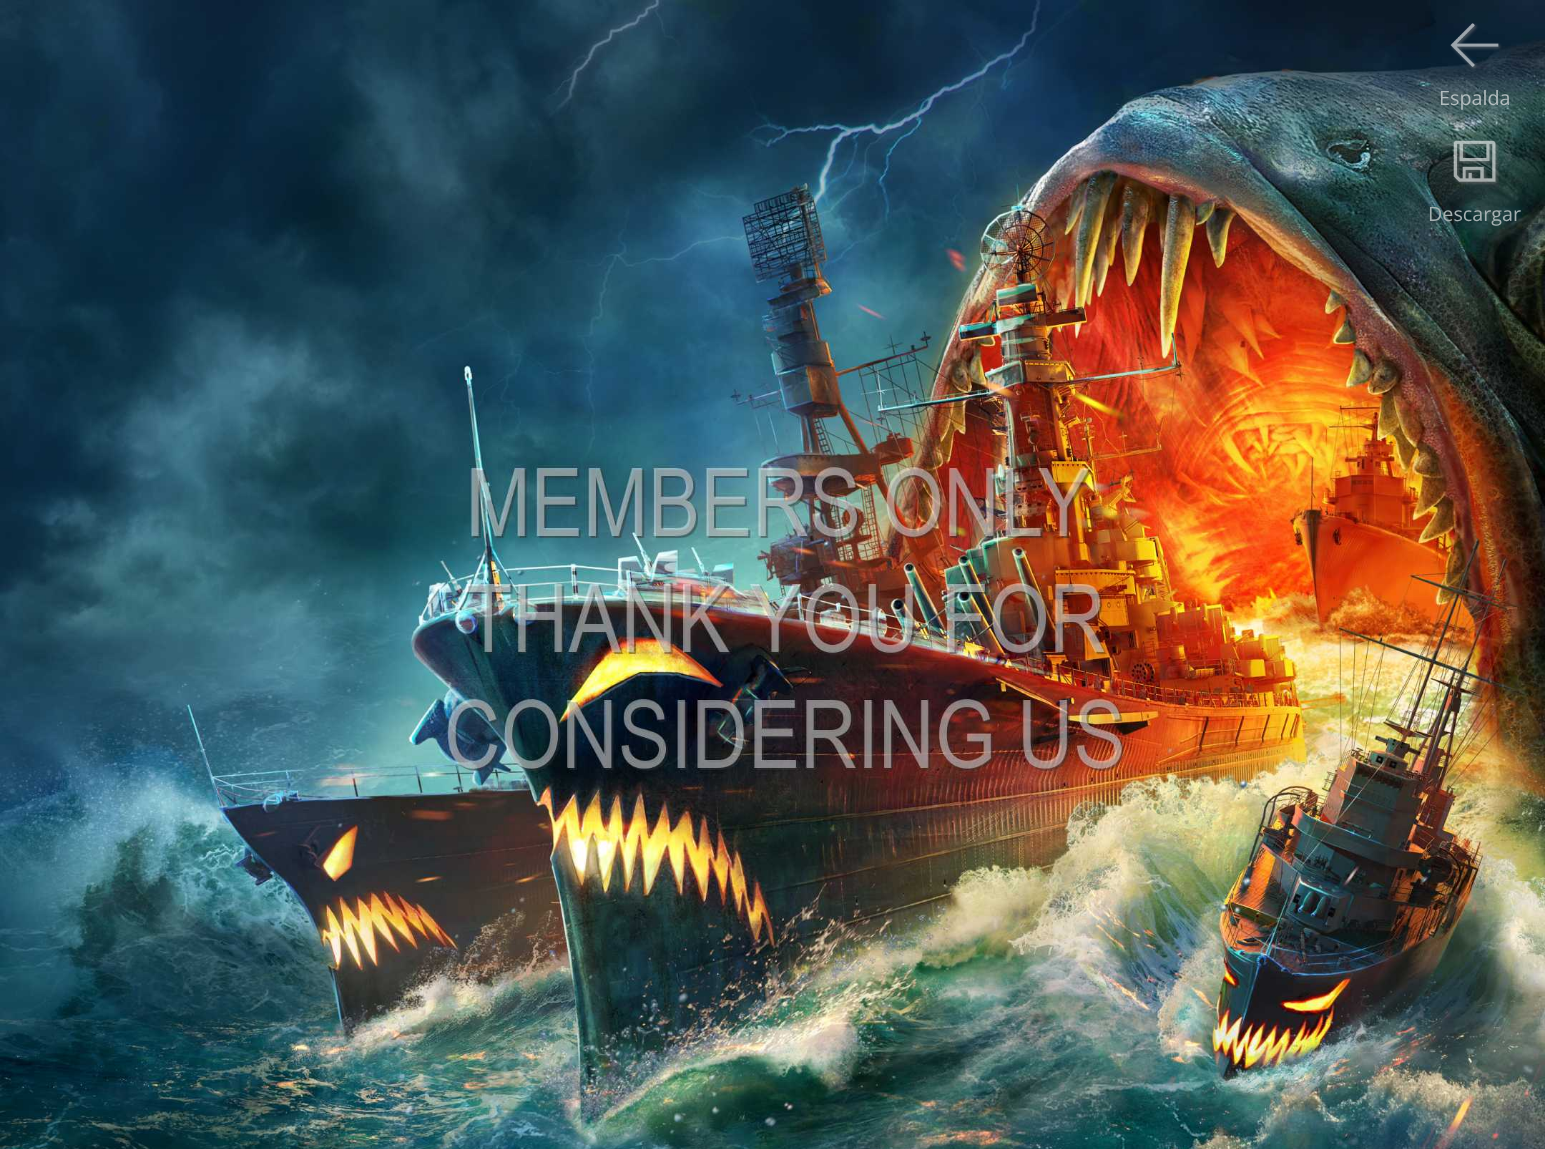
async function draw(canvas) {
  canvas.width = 1545;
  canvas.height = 1149;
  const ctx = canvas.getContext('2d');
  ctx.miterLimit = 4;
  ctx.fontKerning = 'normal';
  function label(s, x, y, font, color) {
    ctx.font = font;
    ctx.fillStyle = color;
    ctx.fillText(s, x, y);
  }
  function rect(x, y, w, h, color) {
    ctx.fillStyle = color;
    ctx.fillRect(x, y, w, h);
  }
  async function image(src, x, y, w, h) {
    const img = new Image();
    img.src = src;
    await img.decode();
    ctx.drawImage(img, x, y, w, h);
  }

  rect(0, 0, 1545, 1149, '#fff');
  await image('assets/img1.png', 0, 0, 1545, 1149);
  await image('assets/img2.png', 1450, 23, 52, 47);
  label('Espalda', 1439, 105, '19.75px Open Sans', '#b3bdbf');
  await image('assets/img3.png', 1453, 140, 46, 46);
  label('Descargar', 1428, 221, '19.75px Open Sans', '#a6b1b2');
}

draw(document.querySelector('canvas'));
